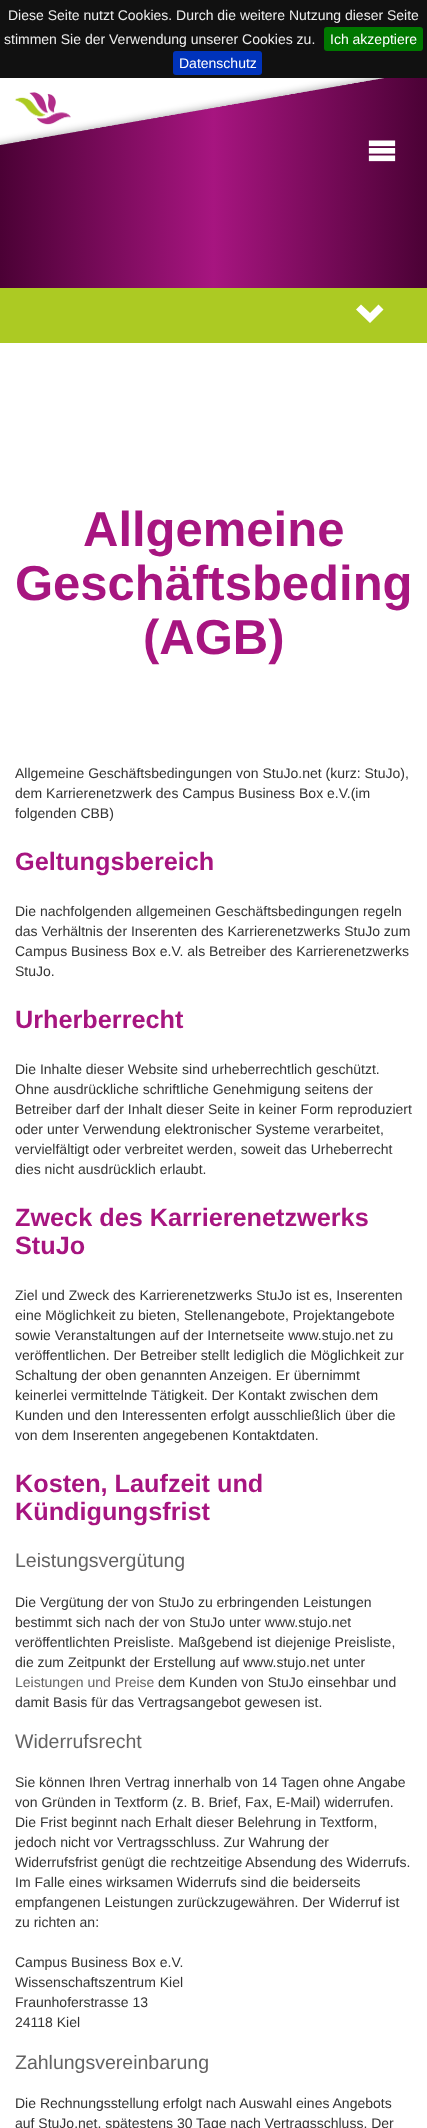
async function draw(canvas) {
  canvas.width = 427;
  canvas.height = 2128;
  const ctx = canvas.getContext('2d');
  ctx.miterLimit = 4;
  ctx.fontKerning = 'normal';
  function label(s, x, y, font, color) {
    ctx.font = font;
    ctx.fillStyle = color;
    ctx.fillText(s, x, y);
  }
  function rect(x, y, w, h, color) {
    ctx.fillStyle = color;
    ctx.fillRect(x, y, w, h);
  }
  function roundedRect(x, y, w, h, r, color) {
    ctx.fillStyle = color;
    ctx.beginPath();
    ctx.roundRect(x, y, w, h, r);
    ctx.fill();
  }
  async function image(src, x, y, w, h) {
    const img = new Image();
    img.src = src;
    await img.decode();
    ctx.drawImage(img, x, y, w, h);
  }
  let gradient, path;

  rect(0, 0, 427, 2128, '#fff');
  rect(0, 0, 427, 78, '#111');
  label('Diese Seite nutzt Cookies. Durch die weitere Nutzung dieser Seite', 8, 20, '14px Liberation Sans', '#eee');
  label('stimmen Sie der Verwendung unserer Cookies zu.', 4, 44, '14px Liberation Sans', '#eee');
  roundedRect(324, 27, 99, 24, 3, '#070');
  label('Ich akzeptiere', 330, 44, '14px Liberation Sans', '#fff');
  roundedRect(173, 51, 89, 24, 3, '#03b');
  label('Datenschutz', 179, 68, '14px Liberation Sans', '#fff');
  gradient = ctx.createLinearGradient(0, 183, 427, 183);
  gradient.addColorStop(0, '#4b0135');
  gradient.addColorStop(0.5, '#a71580');
  gradient.addColorStop(1, '#4b0135');
  ctx.fillStyle = gradient;
  ctx.fillRect(0, 78, 427, 210);
  await image('assets/img3.png', 368, 140, 28, 22);
  await image('assets/img1.png', 0, 78, 384, 67);
  await image('assets/img2.png', 15, 92, 56, 33);
  rect(0, 288, 427, 55, '#acca23');
  ctx.fillStyle = '#fff';
  path = new Path2D('M383.5 309.5L370 323L356 309.5L361 304.5L370 313L378.5 304.5Z');
  ctx.fill(path);
  label('Allgemeine', 83, 546, 'bold 49px Liberation Sans', '#a71580');
  label('Geschäftsbeding', 15, 600, 'bold 49px Liberation Sans', '#a71580');
  label('(AGB)', 143, 654, 'bold 49px Liberation Sans', '#a71580');
  label('Allgemeine Geschäftsbedingungen von StuJo.net (kurz: StuJo),', 15, 778, '14px Liberation Sans', '#333');
  label('dem Karrierenetzwerk des Campus Business Box e.V.(im', 15, 798, '14px Liberation Sans', '#333');
  label('folgenden CBB)', 15, 818, '14px Liberation Sans', '#333');
  label('Geltungsbereich', 15, 870, 'bold 25.25px Liberation Sans', '#a71580');
  label('Die nachfolgenden allgemeinen Geschäftsbedingungen regeln', 15, 916, '14px Liberation Sans', '#333');
  label('das Verhältnis der Inserenten des Karrierenetzwerks StuJo zum', 15, 936, '14px Liberation Sans', '#333');
  label('Campus Business Box e.V. als Betreiber des Karrierenetzwerks', 15, 956, '14px Liberation Sans', '#333');
  label('StuJo.', 15, 976, '14px Liberation Sans', '#333');
  label('Urherberrecht', 15, 1028, 'bold 25.25px Liberation Sans', '#a71580');
  label('Die Inhalte dieser Website sind urheberrechtlich geschützt.', 15, 1074, '14px Liberation Sans', '#333');
  label('Ohne ausdrückliche schriftliche Genehmigung seitens der', 15, 1094, '14px Liberation Sans', '#333');
  label('Betreiber darf der Inhalt dieser Seite in keiner Form reproduziert', 15, 1114, '14px Liberation Sans', '#333');
  label('oder unter Verwendung elektronischer Systeme verarbeitet,', 15, 1134, '14px Liberation Sans', '#333');
  label('vervielfältigt oder verbreitet werden, soweit das Urheberrecht', 15, 1154, '14px Liberation Sans', '#333');
  label('dies nicht ausdrücklich erlaubt.', 15, 1174, '14px Liberation Sans', '#333');
  label('Zweck des Karrierenetzwerks', 15, 1226, 'bold 25.25px Liberation Sans', '#a71580');
  label('StuJo', 15, 1254, 'bold 25.25px Liberation Sans', '#a71580');
  label('Ziel und Zweck des Karrierenetzwerks StuJo ist es, Inserenten', 15, 1300, '14px Liberation Sans', '#333');
  label('eine Möglichkeit zu bieten, Stellenangebote, Projektangebote', 15, 1320, '14px Liberation Sans', '#333');
  label('sowie Veranstaltungen auf der Internetseite www.stujo.net zu', 15, 1340, '14px Liberation Sans', '#333');
  label('veröffentlichen. Der Betreiber stellt lediglich die Möglichkeit zur', 15, 1360, '14px Liberation Sans', '#333');
  label('Schaltung der oben genannten Anzeigen. Er übernimmt', 15, 1380, '14px Liberation Sans', '#333');
  label('keinerlei vermittelnde Tätigkeit. Der Kontakt zwischen dem', 15, 1400, '14px Liberation Sans', '#333');
  label('Kunden und den Interessenten erfolgt ausschließlich über die', 15, 1420, '14px Liberation Sans', '#333');
  label('von dem Inserenten angegebenen Kontaktdaten.', 15, 1440, '14px Liberation Sans', '#333');
  label('Kosten, Laufzeit und', 15, 1492, 'bold 25.25px Liberation Sans', '#a71580');
  label('Kündigungsfrist', 15, 1520, 'bold 25.25px Liberation Sans', '#a71580');
  label('Leistungsvergütung', 15, 1567, '19.5px Liberation Sans', '#646363');
  label('Die Vergütung der von StuJo zu erbringenden Leistungen', 15, 1607, '14px Liberation Sans', '#333');
  label('bestimmt sich nach der von StuJo unter www.stujo.net', 15, 1627, '14px Liberation Sans', '#333');
  label('veröffentlichten Preisliste. Maßgebend ist diejenige Preisliste,', 15, 1647, '14px Liberation Sans', '#333');
  label('die zum Zeitpunkt der Erstellung auf www.stujo.net unter', 15, 1667, '14px Liberation Sans', '#333');
  label('Leistungen und Preise', 15, 1687, '14px Liberation Sans', '#646363');
  label('dem Kunden von StuJo einsehbar und', 158, 1687, '14px Liberation Sans', '#333');
  label('damit Basis für das Vertragsangebot gewesen ist.', 15, 1707, '14px Liberation Sans', '#333');
  label('Widerrufsrecht', 15, 1748, '19.5px Liberation Sans', '#646363');
  label('Sie können Ihren Vertrag innerhalb von 14 Tagen ohne Angabe', 15, 1787, '14px Liberation Sans', '#333');
  label('von Gründen in Textform (z. B. Brief, Fax, E-Mail) widerrufen.', 15, 1807, '14px Liberation Sans', '#333');
  label('Die Frist beginnt nach Erhalt dieser Belehrung in Textform,', 15, 1827, '14px Liberation Sans', '#333');
  label('jedoch nicht vor Vertragsschluss. Zur Wahrung der', 15, 1847, '14px Liberation Sans', '#333');
  label('Widerrufsfrist genügt die rechtzeitige Absendung des Widerrufs.', 15, 1867, '14px Liberation Sans', '#333');
  label('Im Falle eines wirksamen Widerrufs sind die beiderseits', 15, 1887, '14px Liberation Sans', '#333');
  label('empfangenen Leistungen zurückzugewähren. Der Widerruf ist', 15, 1907, '14px Liberation Sans', '#333');
  label('zu richten an:', 15, 1927, '14px Liberation Sans', '#333');
  label('Campus Business Box e.V.', 15, 1967, '14px Liberation Sans', '#333');
  label('Wissenschaftszentrum Kiel', 15, 1987, '14px Liberation Sans', '#333');
  label('Fraunhoferstrasse 13', 15, 2007, '14px Liberation Sans', '#333');
  label('24118 Kiel', 15, 2027, '14px Liberation Sans', '#333');
  label('Zahlungsvereinbarung', 15, 2069, '19.5px Liberation Sans', '#646363');
  label('Die Rechnungsstellung erfolgt nach Auswahl eines Angebots', 15, 2108, '14px Liberation Sans', '#333');
  label('auf StuJo.net, spätestens 30 Tage nach Vertragsschluss. Der', 15, 2128, '14px Liberation Sans', '#333');
}

draw(document.querySelector('canvas'));
